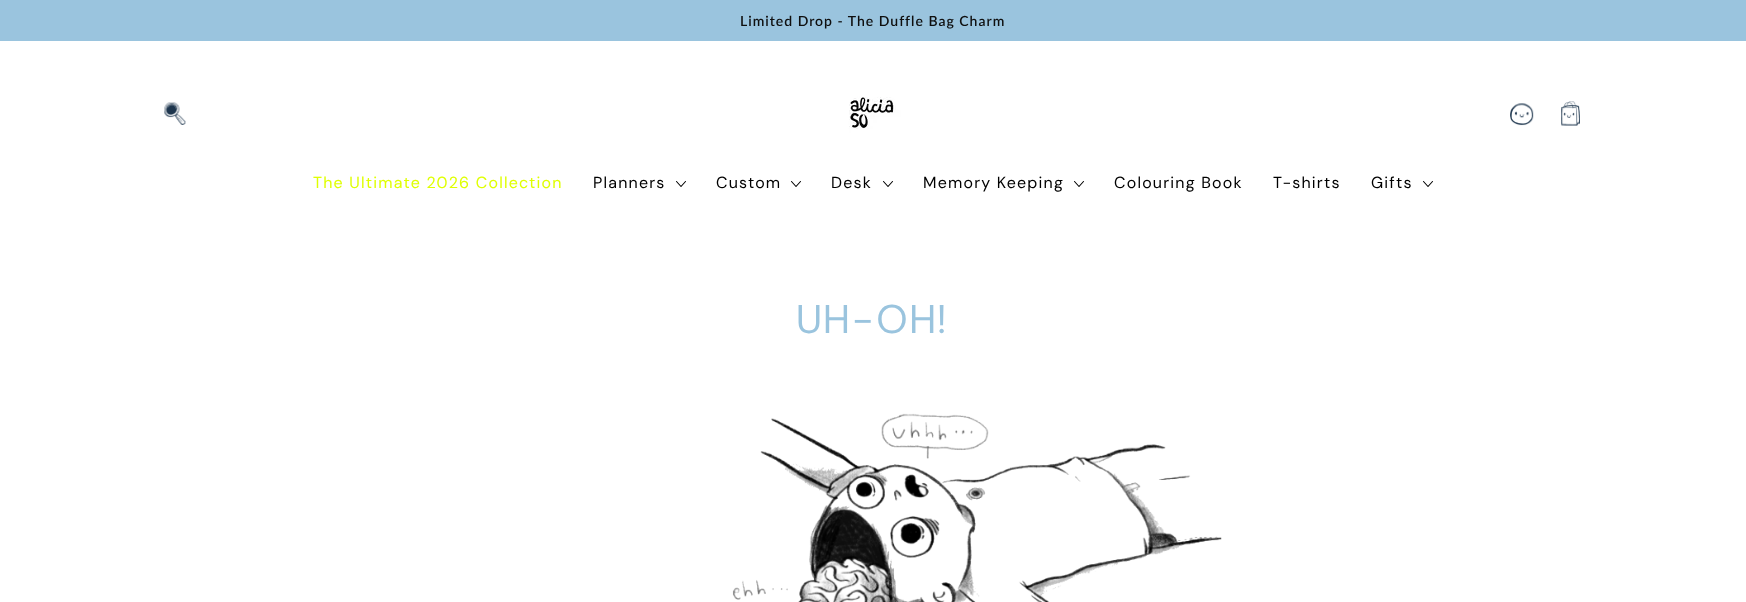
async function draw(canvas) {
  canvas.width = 1746;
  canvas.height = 602;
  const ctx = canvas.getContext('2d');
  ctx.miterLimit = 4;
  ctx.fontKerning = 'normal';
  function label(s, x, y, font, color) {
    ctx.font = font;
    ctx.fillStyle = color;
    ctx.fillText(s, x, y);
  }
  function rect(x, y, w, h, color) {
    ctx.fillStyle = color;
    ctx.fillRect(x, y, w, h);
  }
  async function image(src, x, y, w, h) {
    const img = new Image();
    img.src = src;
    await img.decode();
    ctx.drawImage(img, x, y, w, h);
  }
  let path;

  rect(0, 0, 1746, 602, '#fff');
  rect(0, 0, 1746, 41, '#9ac4de');
  ctx.letterSpacing = '1px';
  label('Limited Drop - The Duffle Bag Charm', 740, 26, '600 14px Lato', '#0f0f0f');
  await image('assets/img1.png', 164, 102, 22, 23);
  await image('assets/img2.png', 813, 69, 120, 90);
  await image('assets/img3.png', 1510, 103, 24, 23);
  await image('assets/img4.png', 1561, 101, 19, 25);
  ctx.letterSpacing = '1.2px';
  label('The Ultimate 2026 Collection', 313, 188, '16px "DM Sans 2"', '#dfff00');
  label('Planners', 593, 188, '16px "DM Sans 2"', '#000');
  path = new Path2D('M676.5 181.5L681 186.5L685.5 181.5');
  ctx.strokeStyle = '#000';
  ctx.lineWidth = 1.1;
  ctx.lineCap = 'round';
  ctx.lineJoin = 'round';
  ctx.stroke(path);
  label('Custom', 716, 188, '16px "DM Sans 2"', '#000');
  path = new Path2D('M791.5 181.5L796 186.5L800.5 181.5');
  ctx.stroke(path);
  label('Desk', 831, 188, '16px "DM Sans 2"', '#000');
  path = new Path2D('M883.5 181.5L888 186.5L892.5 181.5');
  ctx.stroke(path);
  label('Memory Keeping', 923, 188, '16px "DM Sans 2"', '#000');
  path = new Path2D('M1074.5 181.5L1079 186.5L1083.5 181.5');
  ctx.stroke(path);
  label('Colouring Book', 1114, 188, '16px "DM Sans 2"', '#000');
  label('T-shirts', 1273, 188, '16px "DM Sans 2"', '#000');
  label('Gifts', 1371, 188, '16px "DM Sans 2"', '#000');
  path = new Path2D('M1423.5 181.5L1428 186.5L1432.5 181.5');
  ctx.stroke(path);
  ctx.letterSpacing = '3px';
  label('UH-OH!', 797, 333, '40px DM Sans', '#9ac4de');
  await image('assets/img5.png', 732, 413, 490, 189);
}

draw(document.querySelector('canvas'));
